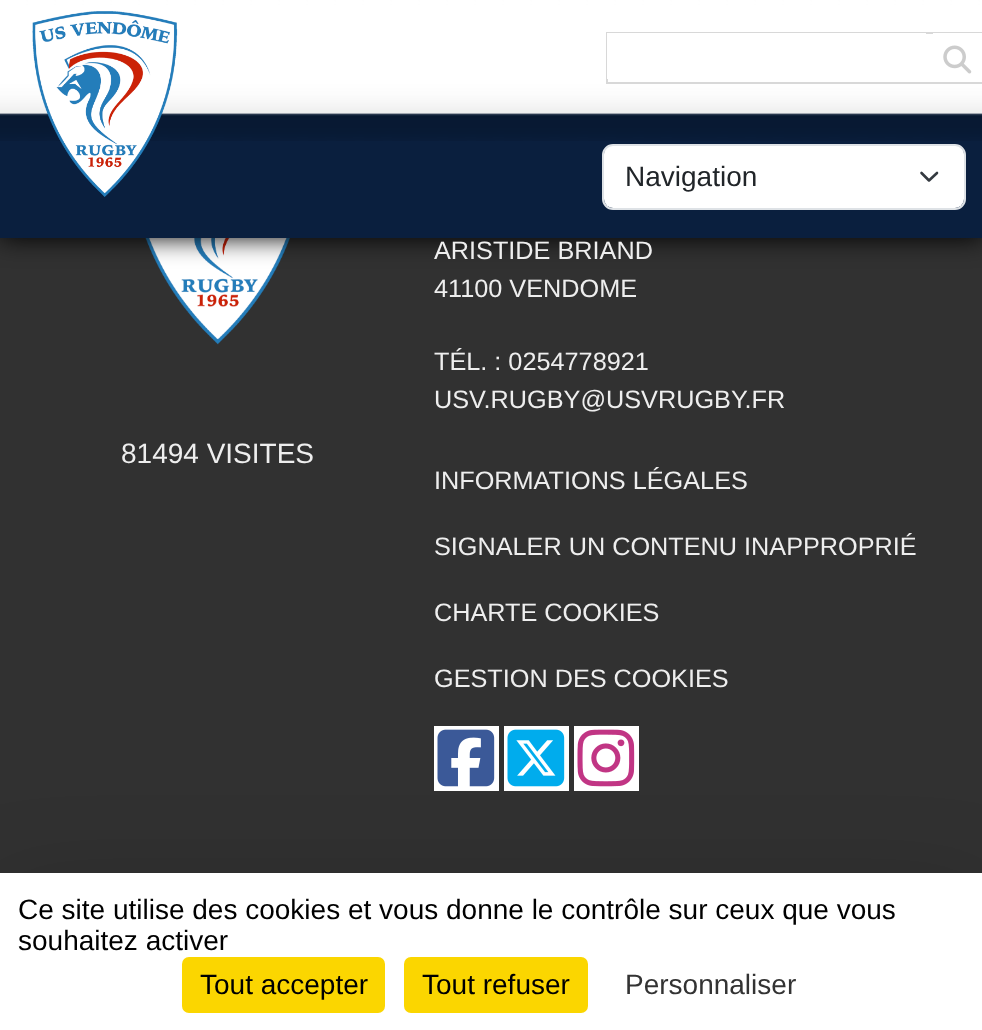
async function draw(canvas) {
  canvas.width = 982;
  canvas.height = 1030;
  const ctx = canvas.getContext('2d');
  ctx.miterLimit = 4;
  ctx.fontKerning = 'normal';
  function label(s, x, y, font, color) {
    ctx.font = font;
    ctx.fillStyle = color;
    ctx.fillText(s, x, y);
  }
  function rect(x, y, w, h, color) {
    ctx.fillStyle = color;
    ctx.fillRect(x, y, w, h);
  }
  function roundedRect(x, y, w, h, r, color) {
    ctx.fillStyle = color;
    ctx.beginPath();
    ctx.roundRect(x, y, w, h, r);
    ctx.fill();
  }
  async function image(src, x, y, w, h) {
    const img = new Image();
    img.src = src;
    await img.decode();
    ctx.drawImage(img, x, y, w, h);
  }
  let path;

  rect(0, 0, 982, 1030, '#313131');
  await image('assets/img4.png', 145, 238, 145, 107);
  ctx.fillStyle = '#000';
  ctx.filter = 'blur(13px)';
  ctx.beginPath();
  ctx.rect(0, 0, 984, 238);
  ctx.fill();
  ctx.filter = 'none';
  rect(0, 113, 982, 125, '#0a1f3e');
  await image('assets/img1.png', 0, 0, 982, 141);
  await image('assets/img2.png', 32, 11, 146, 186);
  ctx.strokeStyle = '#d8d8d8';
  ctx.lineWidth = 2;
  ctx.strokeRect(607, 33, 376, 50);
  rect(607, 33, 319, 46, '#fff');
  rect(933, 33, 49, 1, '#fff');
  await image('assets/img3.png', 943, 45, 29, 29);
  roundedRect(604, 145, 360, 63, 9, '#fff');
  path = new Path2D('M921.5 173L929 180.5L937 173');
  ctx.strokeStyle = '#343a40';
  ctx.lineWidth = 2.6;
  ctx.lineCap = 'round';
  ctx.lineJoin = 'round';
  ctx.stroke(path);
  ctx.beginPath();
  ctx.roundRect(603, 145, 362, 64, 10);
  ctx.strokeStyle = '#dee2e6';
  ctx.lineWidth = 2;
  ctx.lineJoin = 'miter';
  ctx.stroke();
  label('Navigation', 625, 186, '28px Liberation Sans', '#212529');
  label('81494 VISITES', 121, 463, '28px Liberation Sans', '#eee');
  label('ARISTIDE BRIAND', 434, 259, '25.25px Liberation Sans', '#eee');
  label('41100 VENDOME', 434, 297, '25.25px Liberation Sans', '#eee');
  label('TÉL. : 0254778921', 434, 370, '25.25px Liberation Sans', '#eee');
  label('USV.RUGBY@USVRUGBY.FR', 434, 408, '25.25px Liberation Sans', '#eee');
  label('INFORMATIONS LÉGALES', 434, 489, '25.25px Liberation Sans', '#eee');
  label('SIGNALER UN CONTENU INAPPROPRIÉ', 434, 555, '25.25px Liberation Sans', '#eee');
  label('CHARTE COOKIES', 434, 621, '25.25px Liberation Sans', '#eee');
  label('GESTION DES COOKIES', 434, 687, '25.25px Liberation Sans', '#eee');
  rect(434, 726, 65, 65, '#fff');
  await image('assets/img5.png', 437, 729, 58, 58);
  rect(504, 726, 65, 65, '#fff');
  await image('assets/img6.png', 507, 729, 58, 58);
  rect(574, 726, 65, 65, '#fff');
  await image('assets/img7.png', 577, 729, 58, 58);
  ctx.fillStyle = '#00000040';
  ctx.filter = 'blur(52.5px)';
  ctx.beginPath();
  ctx.rect(0, 908, 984, 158);
  ctx.fill();
  ctx.filter = 'none';
  rect(0, 873, 982, 157, '#fff');
  label('Ce site utilise des cookies et vous donne le contrôle sur ceux que vous', 18, 919, '28px Liberation Sans', '#000');
  label('souhaitez activer', 18, 950, '28px Liberation Sans', '#000');
  roundedRect(182, 957, 203, 56, 7, '#fbd600');
  label('Tout accepter', 200, 994, '28px Liberation Sans', '#000');
  roundedRect(404, 957, 184, 56, 7, '#fbd600');
  label('Tout refuser', 422, 994, '28px Liberation Sans', '#000');
  label('Personnaliser', 625, 994, '28px Liberation Sans', '#333');
}

draw(document.querySelector('canvas'));
